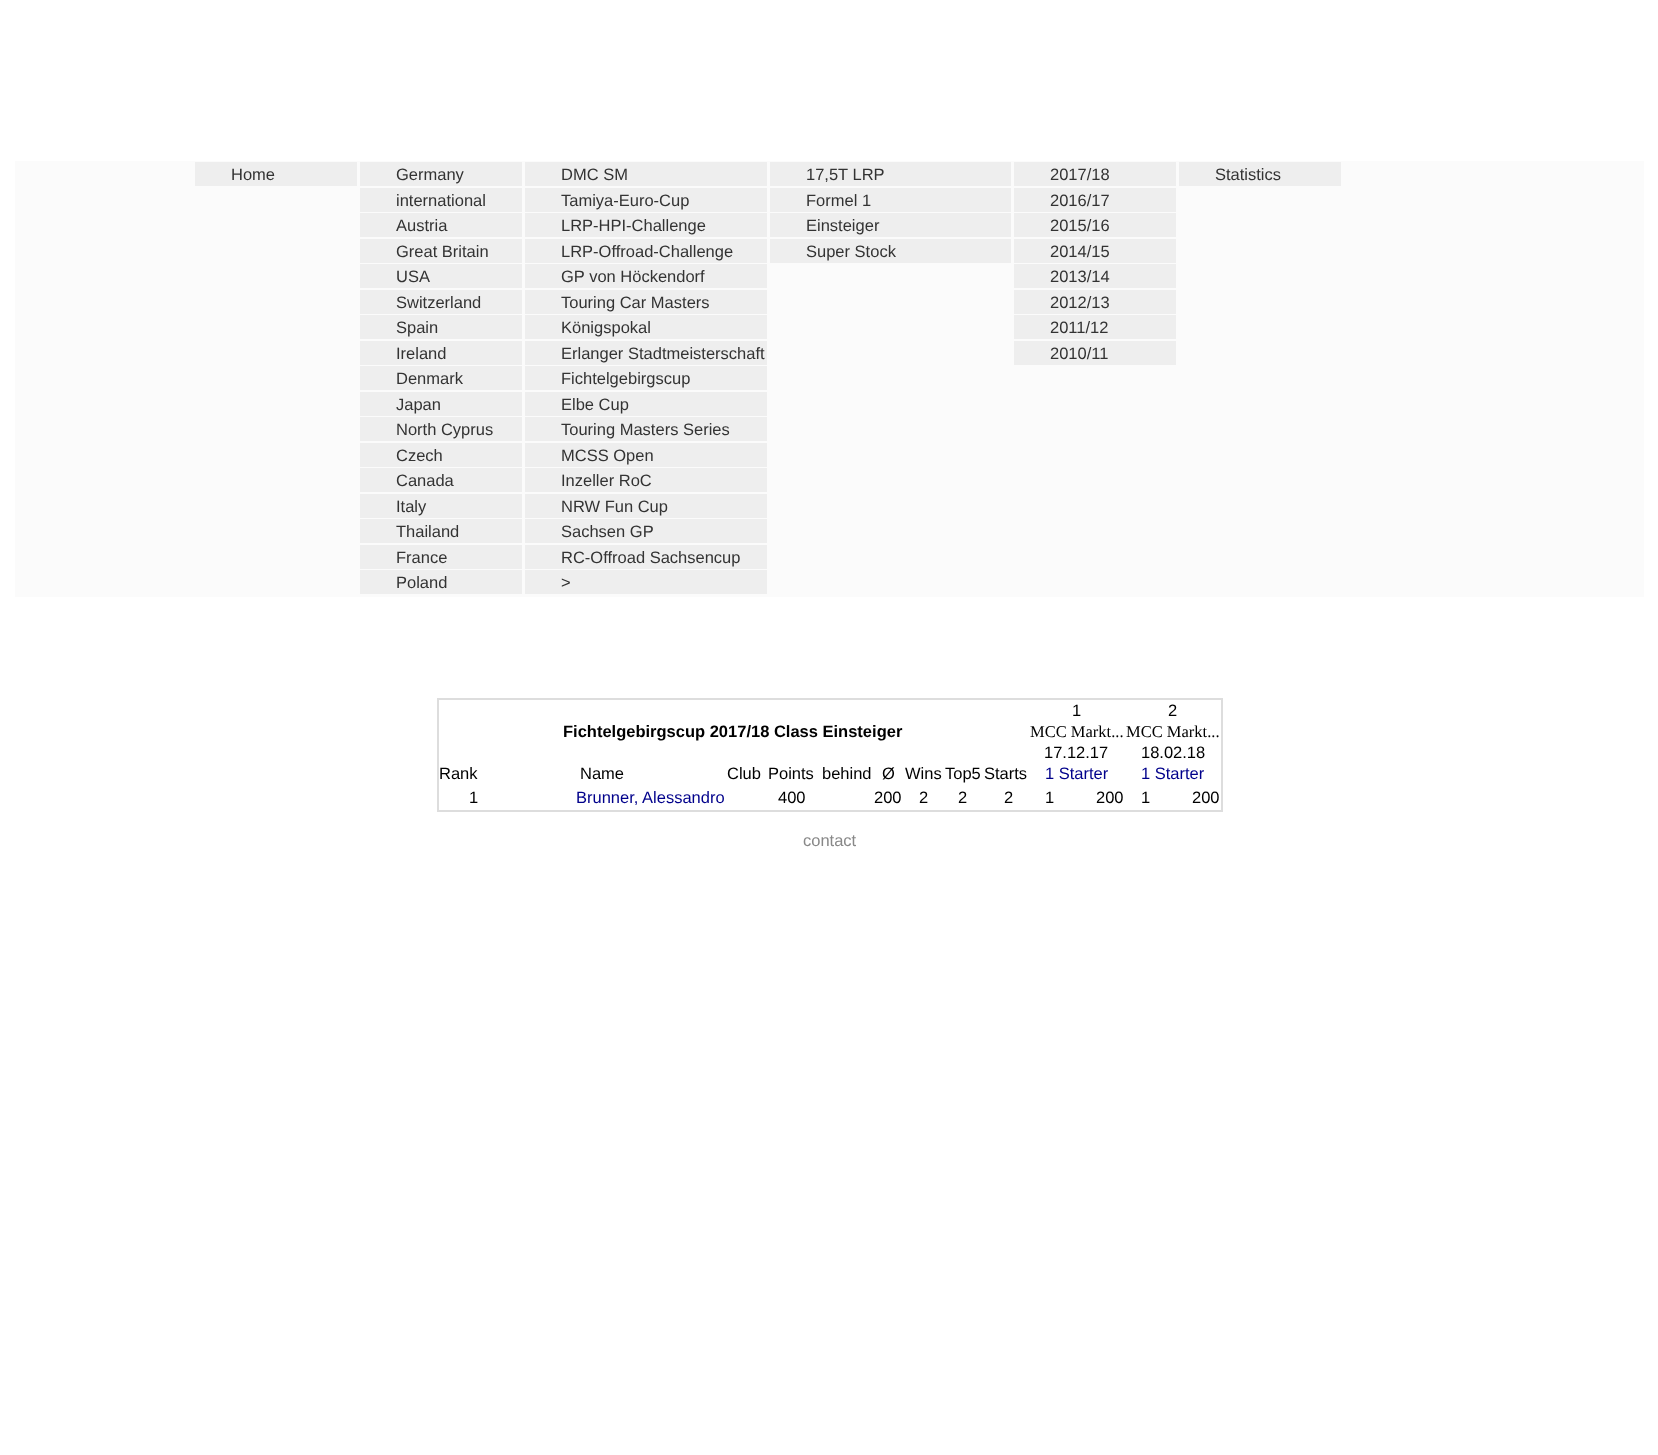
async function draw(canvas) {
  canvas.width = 1658;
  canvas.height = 1455;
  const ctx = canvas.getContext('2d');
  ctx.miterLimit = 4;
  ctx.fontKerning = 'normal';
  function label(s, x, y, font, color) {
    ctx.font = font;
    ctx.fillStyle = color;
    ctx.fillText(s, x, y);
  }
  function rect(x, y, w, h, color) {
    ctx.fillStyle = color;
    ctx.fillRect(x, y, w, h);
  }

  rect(0, 0, 1658, 1455, '#fff');
  rect(15, 161, 1629, 436, '#fbfbfb');
  rect(195, 162, 162, 24, '#eee');
  label('Home', 231, 180, '16.5px Liberation Sans', '#333');
  rect(360, 162, 162, 24, '#eee');
  label('Germany', 396, 180, '16.5px Liberation Sans', '#333');
  rect(360, 188, 162, 24, '#eee');
  label('international', 396, 206, '16.5px Liberation Sans', '#333');
  rect(360, 213, 162, 24, '#eee');
  label('Austria', 396, 231, '16.5px Liberation Sans', '#333');
  rect(360, 239, 162, 24, '#eee');
  label('Great Britain', 396, 257, '16.5px Liberation Sans', '#333');
  rect(360, 264, 162, 24, '#eee');
  label('USA', 396, 282, '16.5px Liberation Sans', '#333');
  rect(360, 290, 162, 24, '#eee');
  label('Switzerland', 396, 308, '16.5px Liberation Sans', '#333');
  rect(360, 315, 162, 24, '#eee');
  label('Spain', 396, 333, '16.5px Liberation Sans', '#333');
  rect(360, 341, 162, 24, '#eee');
  label('Ireland', 396, 359, '16.5px Liberation Sans', '#333');
  rect(360, 366, 162, 24, '#eee');
  label('Denmark', 396, 384, '16.5px Liberation Sans', '#333');
  rect(360, 392, 162, 24, '#eee');
  label('Japan', 396, 410, '16.5px Liberation Sans', '#333');
  rect(360, 417, 162, 24, '#eee');
  label('North Cyprus', 396, 435, '16.5px Liberation Sans', '#333');
  rect(360, 443, 162, 24, '#eee');
  label('Czech', 396, 461, '16.5px Liberation Sans', '#333');
  rect(360, 468, 162, 24, '#eee');
  label('Canada', 396, 486, '16.5px Liberation Sans', '#333');
  rect(360, 494, 162, 24, '#eee');
  label('Italy', 396, 512, '16.5px Liberation Sans', '#333');
  rect(360, 519, 162, 24, '#eee');
  label('Thailand', 396, 537, '16.5px Liberation Sans', '#333');
  rect(360, 545, 162, 24, '#eee');
  label('France', 396, 563, '16.5px Liberation Sans', '#333');
  rect(360, 570, 162, 24, '#eee');
  label('Poland', 396, 588, '16.5px Liberation Sans', '#333');
  rect(525, 162, 242, 24, '#eee');
  label('DMC SM', 561, 180, '16.5px Liberation Sans', '#333');
  rect(525, 188, 242, 24, '#eee');
  label('Tamiya-Euro-Cup', 561, 206, '16.5px Liberation Sans', '#333');
  rect(525, 213, 242, 24, '#eee');
  label('LRP-HPI-Challenge', 561, 231, '16.5px Liberation Sans', '#333');
  rect(525, 239, 242, 24, '#eee');
  label('LRP-Offroad-Challenge', 561, 257, '16.5px Liberation Sans', '#333');
  rect(525, 264, 242, 24, '#eee');
  label('GP von Höckendorf', 561, 282, '16.5px Liberation Sans', '#333');
  rect(525, 290, 242, 24, '#eee');
  label('Touring Car Masters', 561, 308, '16.5px Liberation Sans', '#333');
  rect(525, 315, 242, 24, '#eee');
  label('Königspokal', 561, 333, '16.5px Liberation Sans', '#333');
  rect(525, 341, 242, 24, '#eee');
  label('Erlanger Stadtmeisterschaft', 561, 359, '16.5px Liberation Sans', '#333');
  rect(525, 366, 242, 24, '#eee');
  label('Fichtelgebirgscup', 561, 384, '16.5px Liberation Sans', '#333');
  rect(525, 392, 242, 24, '#eee');
  label('Elbe Cup', 561, 410, '16.5px Liberation Sans', '#333');
  rect(525, 417, 242, 24, '#eee');
  label('Touring Masters Series', 561, 435, '16.5px Liberation Sans', '#333');
  rect(525, 443, 242, 24, '#eee');
  label('MCSS Open', 561, 461, '16.5px Liberation Sans', '#333');
  rect(525, 468, 242, 24, '#eee');
  label('Inzeller RoC', 561, 486, '16.5px Liberation Sans', '#333');
  rect(525, 494, 242, 24, '#eee');
  label('NRW Fun Cup', 561, 512, '16.5px Liberation Sans', '#333');
  rect(525, 519, 242, 24, '#eee');
  label('Sachsen GP', 561, 537, '16.5px Liberation Sans', '#333');
  rect(525, 545, 242, 24, '#eee');
  label('RC-Offroad Sachsencup', 561, 563, '16.5px Liberation Sans', '#333');
  rect(525, 570, 242, 24, '#eee');
  label('>', 561, 588, '16.5px Liberation Sans', '#333');
  rect(770, 162, 241, 24, '#eee');
  label('17,5T LRP', 806, 180, '16.5px Liberation Sans', '#333');
  rect(770, 188, 241, 24, '#eee');
  label('Formel 1', 806, 206, '16.5px Liberation Sans', '#333');
  rect(770, 213, 241, 24, '#eee');
  label('Einsteiger', 806, 231, '16.5px Liberation Sans', '#333');
  rect(770, 239, 241, 24, '#eee');
  label('Super Stock', 806, 257, '16.5px Liberation Sans', '#333');
  rect(1014, 162, 162, 24, '#eee');
  label('2017/18', 1050, 180, '16.5px Liberation Sans', '#333');
  rect(1014, 188, 162, 24, '#eee');
  label('2016/17', 1050, 206, '16.5px Liberation Sans', '#333');
  rect(1014, 213, 162, 24, '#eee');
  label('2015/16', 1050, 231, '16.5px Liberation Sans', '#333');
  rect(1014, 239, 162, 24, '#eee');
  label('2014/15', 1050, 257, '16.5px Liberation Sans', '#333');
  rect(1014, 264, 162, 24, '#eee');
  label('2013/14', 1050, 282, '16.5px Liberation Sans', '#333');
  rect(1014, 290, 162, 24, '#eee');
  label('2012/13', 1050, 308, '16.5px Liberation Sans', '#333');
  rect(1014, 315, 162, 24, '#eee');
  label('2011/12', 1050, 333, '16.5px Liberation Sans', '#333');
  rect(1014, 341, 162, 24, '#eee');
  label('2010/11', 1050, 359, '16.5px Liberation Sans', '#333');
  rect(1179, 162, 162, 24, '#eee');
  label('Statistics', 1215, 180, '16.5px Liberation Sans', '#333');
  rect(437, 698, 786, 2, '#ddd');
  rect(1221, 698, 2, 114, '#ddd');
  rect(437, 810, 786, 2, '#ddd');
  rect(437, 698, 2, 114, '#ddd');
  label('1', 1072, 716, '16.5px Liberation Sans', '#000');
  label('2', 1168, 716, '16.5px Liberation Sans', '#000');
  label('Fichtelgebirgscup 2017/18 Class Einsteiger', 563, 737, 'bold 16.5px Liberation Sans', '#000');
  label('MCC Markt...', 1030, 737, '16.5px Liberation Serif', '#000');
  label('MCC Markt...', 1126, 737, '16.5px Liberation Serif', '#000');
  label('17.12.17', 1044, 758, '16.5px Liberation Sans', '#000');
  label('18.02.18', 1141, 758, '16.5px Liberation Sans', '#000');
  label('Rank', 439, 779, '16.5px Liberation Sans', '#000');
  label('Name', 580, 779, '16.5px Liberation Sans', '#000');
  label('Club', 727, 779, '16.5px Liberation Sans', '#000');
  label('Points', 768, 779, '16.5px Liberation Sans', '#000');
  label('behind', 822, 779, '16.5px Liberation Sans', '#000');
  label('Ø', 882, 779, '16.5px Liberation Sans', '#000');
  label('Wins', 905, 779, '16.5px Liberation Sans', '#000');
  label('Top5', 945, 779, '16.5px Liberation Sans', '#000');
  label('Starts', 984, 779, '16.5px Liberation Sans', '#000');
  label('1 Starter', 1045, 779, '16.5px Liberation Sans', '#00008b');
  label('1 Starter', 1141, 779, '16.5px Liberation Sans', '#00008b');
  label('1', 469, 803, '16.5px Liberation Sans', '#000');
  label('Brunner, Alessandro', 576, 803, '16.5px Liberation Sans', '#00008b');
  label('400', 778, 803, '16.5px Liberation Sans', '#000');
  label('200', 874, 803, '16.5px Liberation Sans', '#000');
  label('2', 919, 803, '16.5px Liberation Sans', '#000');
  label('2', 958, 803, '16.5px Liberation Sans', '#000');
  label('2', 1004, 803, '16.5px Liberation Sans', '#000');
  label('1', 1045, 803, '16.5px Liberation Sans', '#000');
  label('200', 1096, 803, '16.5px Liberation Sans', '#000');
  label('1', 1141, 803, '16.5px Liberation Sans', '#000');
  label('200', 1192, 803, '16.5px Liberation Sans', '#000');
  label('contact', 803, 846, '16.5px Liberation Sans', '#888');
}

draw(document.querySelector('canvas'));
